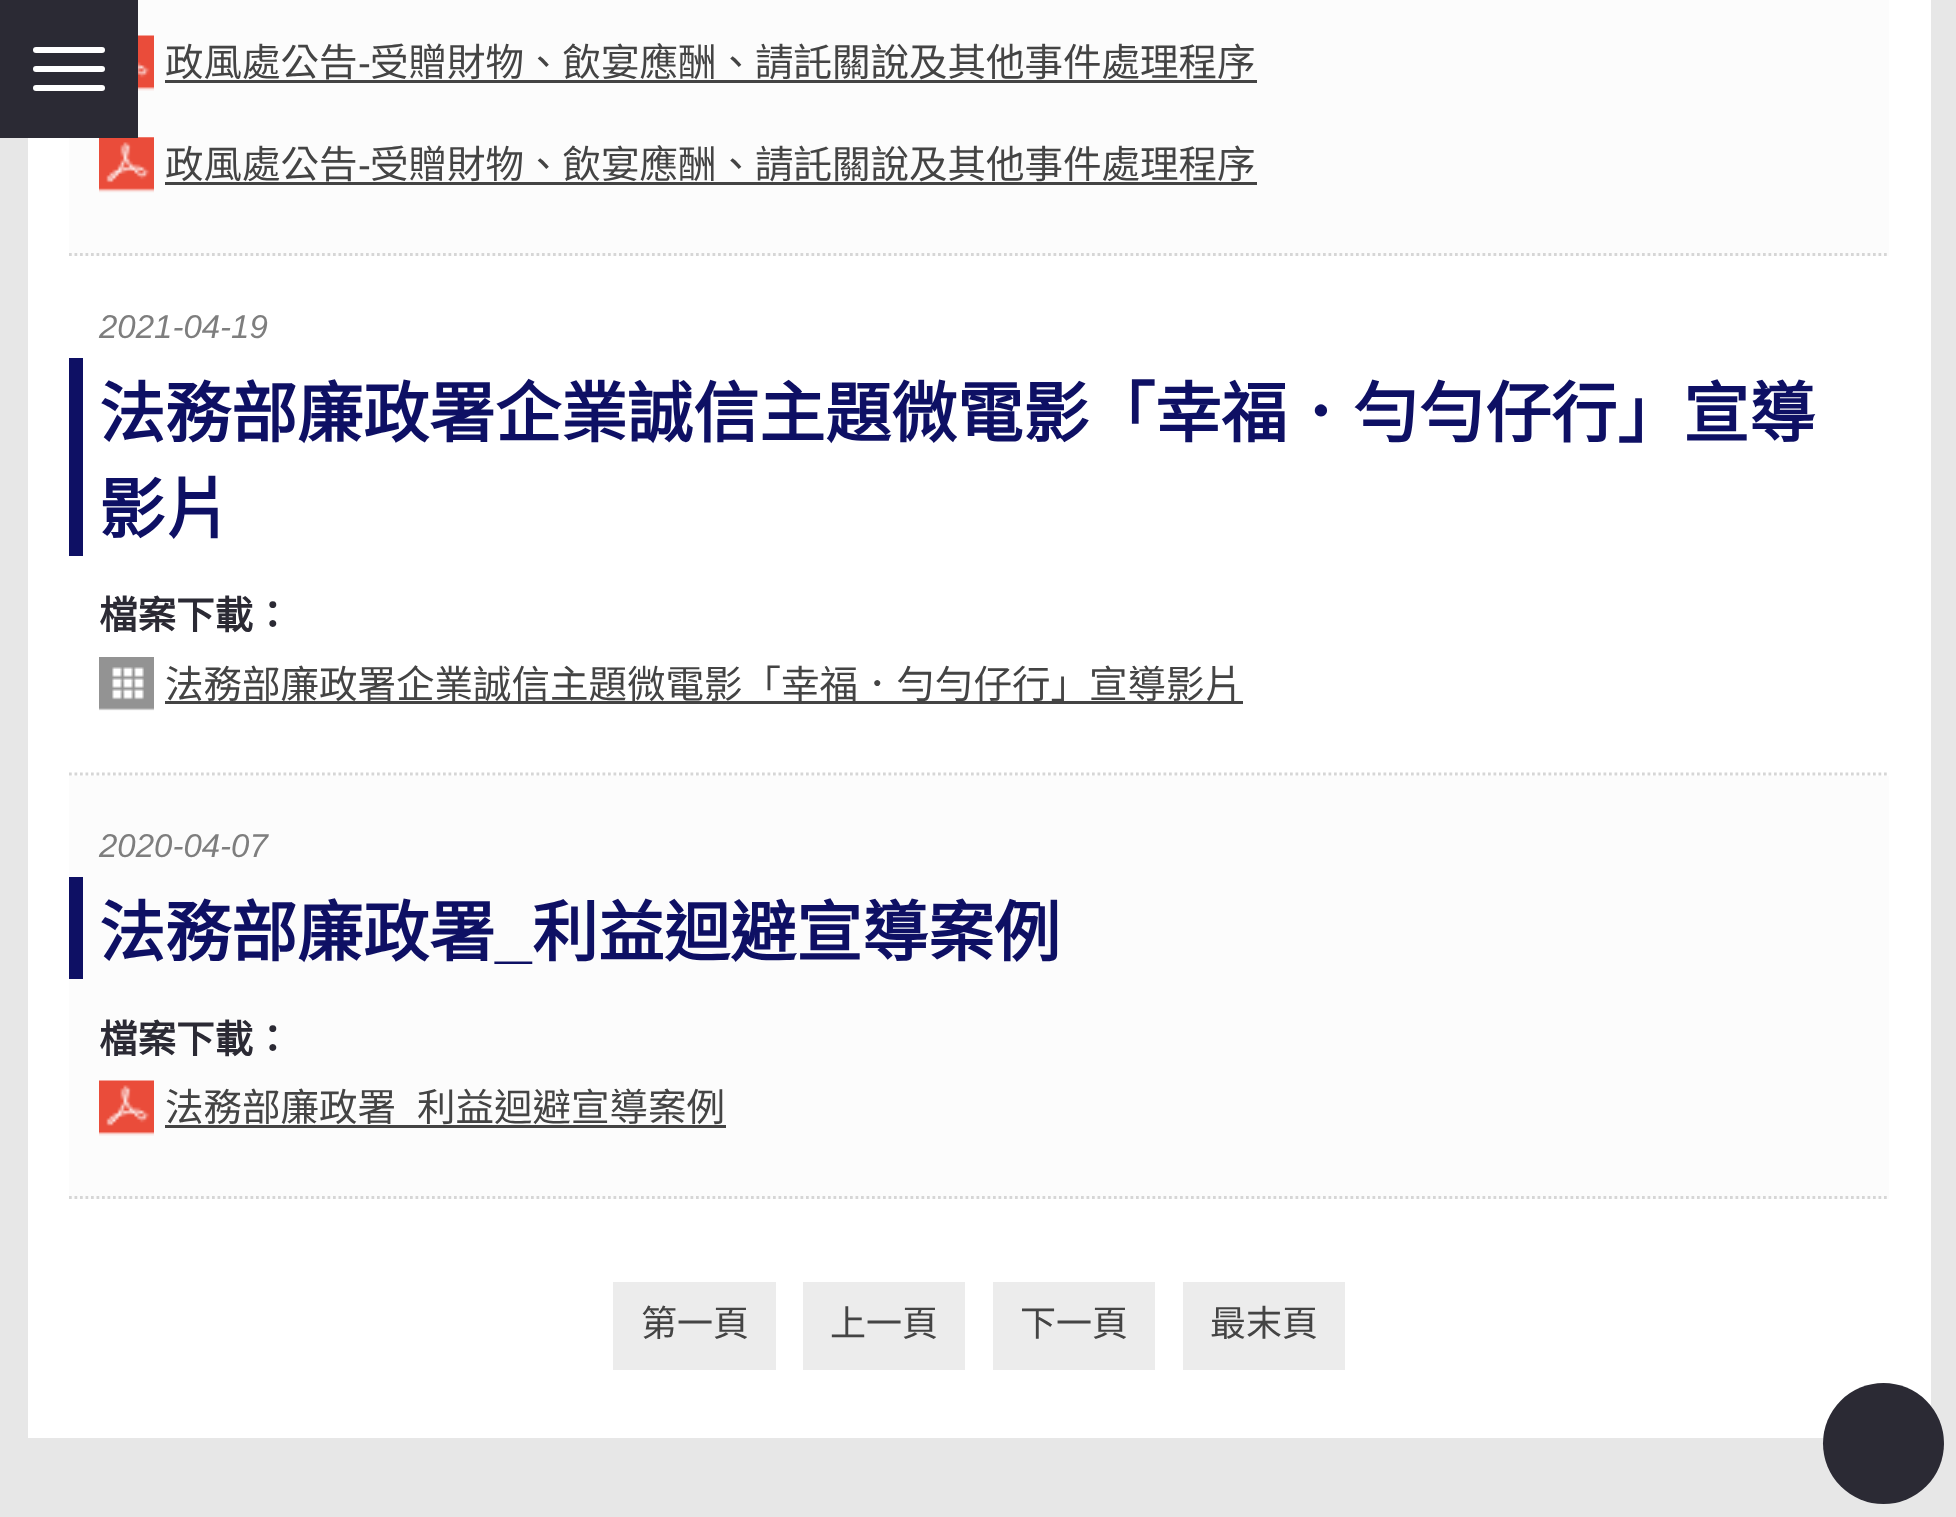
async function draw(canvas) {
  canvas.width = 1956;
  canvas.height = 1517;
  const ctx = canvas.getContext('2d');
  ctx.miterLimit = 4;
  ctx.fontKerning = 'normal';
  function label(s, x, y, font, color) {
    ctx.font = font;
    ctx.fillStyle = color;
    ctx.fillText(s, x, y);
  }
  function rect(x, y, w, h, color) {
    ctx.fillStyle = color;
    ctx.fillRect(x, y, w, h);
  }
  function roundedRect(x, y, w, h, r, color) {
    ctx.fillStyle = color;
    ctx.beginPath();
    ctx.roundRect(x, y, w, h, r);
    ctx.fill();
  }
  async function image(src, x, y, w, h) {
    const img = new Image();
    img.src = src;
    await img.decode();
    ctx.drawImage(img, x, y, w, h);
  }
  let path;

  rect(0, 0, 1956, 1517, '#e7e7e7');
  rect(28, 0, 1903, 1438, '#fff');
  rect(69, 0, 1820, 256, '#fcfcfc');
  await image('assets/img2.png', 99, 137, 55, 56);
  rect(0, 0, 138, 138, '#2b2a34');
  roundedRect(33, 47, 72, 6, 3, '#fff');
  roundedRect(33, 66, 72, 6, 3, '#fff');
  roundedRect(33, 85, 72, 6, 3, '#fff');
  path = new Path2D('M69 254.5H1889');
  ctx.strokeStyle = '#d6d6d6';
  ctx.lineWidth = 2.8;
  ctx.setLineDash([2.75, 2.75]);
  ctx.stroke(path);
  await image('assets/img1.png', 138, 35, 16, 56);
  label('政風處公告', 165, 76, '38.5px Noto Sans CJK TC', '#444');
  label('-', 358, 76, '38.5px Liberation Sans', '#444');
  rect(165, 80, 1092, 3, '#444');
  label('受贈財物、飲宴應酬、請託關說及其他事件處理程序', 370, 76, '38.5px Noto Sans CJK TC', '#444');
  label('政風處公告', 165, 178, '38.5px Noto Sans CJK TC', '#444');
  label('-', 358, 178, '38.5px Liberation Sans', '#444');
  rect(165, 182, 1092, 3, '#444');
  label('受贈財物、飲宴應酬、請託關說及其他事件處理程序', 370, 178, '38.5px Noto Sans CJK TC', '#444');
  path = new Path2D('M69 774H1889');
  ctx.stroke(path);
  label('2021-04-19', 99, 338, 'italic 33px Liberation Sans', '#7e7e7e');
  rect(69, 358, 14, 198, '#0e1064');
  label('法務部廉政署企業誠信主題微電影「幸福．勻勻仔行」宣導', 99, 437, 'bold 66px Noto Sans CJK TC', '#0e1064');
  label('影片', 99, 533, 'bold 66px Noto Sans CJK TC', '#0e1064');
  label('檔案下載：', 99, 629, 'bold 38.5px Noto Sans CJK TC', '#2b2a34');
  await image('assets/img3.png', 99, 657, 55, 54);
  rect(165, 701, 1078, 3, '#444');
  label('法務部廉政署企業誠信主題微電影「幸福．勻勻仔行」宣導影片', 165, 698, '38.5px Noto Sans CJK TC', '#444');
  rect(69, 776, 1820, 423, '#fcfcfc');
  path = new Path2D('M69 1197.5H1889');
  ctx.stroke(path);
  label('2020-04-07', 99, 857, 'italic 33px Liberation Sans', '#7e7e7e');
  rect(69, 877, 14, 102, '#0e1064');
  label('法務部廉政署', 99, 956, 'bold 66px Noto Sans CJK TC', '#0e1064');
  label('利益迴避宣導案例', 532, 956, 'bold 66px Noto Sans CJK TC', '#0e1064');
  label('_', 495, 956, 'bold 66px Liberation Sans', '#0e1064');
  label('檔案下載：', 99, 1053, 'bold 38.5px Noto Sans CJK TC', '#2b2a34');
  await image('assets/img4.png', 99, 1080, 55, 56);
  label('法務部廉政署', 165, 1121, '38.5px Noto Sans CJK TC', '#444');
  rect(165, 1125, 561, 3, '#444');
  label('利益迴避宣導案例', 417, 1121, '38.5px Noto Sans CJK TC', '#444');
  rect(613, 1282, 163, 88, '#ececec');
  label('第一頁', 641, 1336, '36px Noto Sans CJK TC', '#444');
  rect(803, 1282, 162, 88, '#ececec');
  label('上一頁', 830, 1336, '36px Noto Sans CJK TC', '#444');
  rect(993, 1282, 162, 88, '#ececec');
  label('下一頁', 1020, 1336, '36px Noto Sans CJK TC', '#444');
  rect(1183, 1282, 162, 88, '#ececec');
  label('最末頁', 1210, 1336, '36px Noto Sans CJK TC', '#444');
  ctx.fillStyle = '#2b2a34';
  ctx.beginPath();
  ctx.arc(1883.5, 1443.5, 60.5, 0, 2 * Math.PI);
  ctx.fill();
}

draw(document.querySelector('canvas'));
